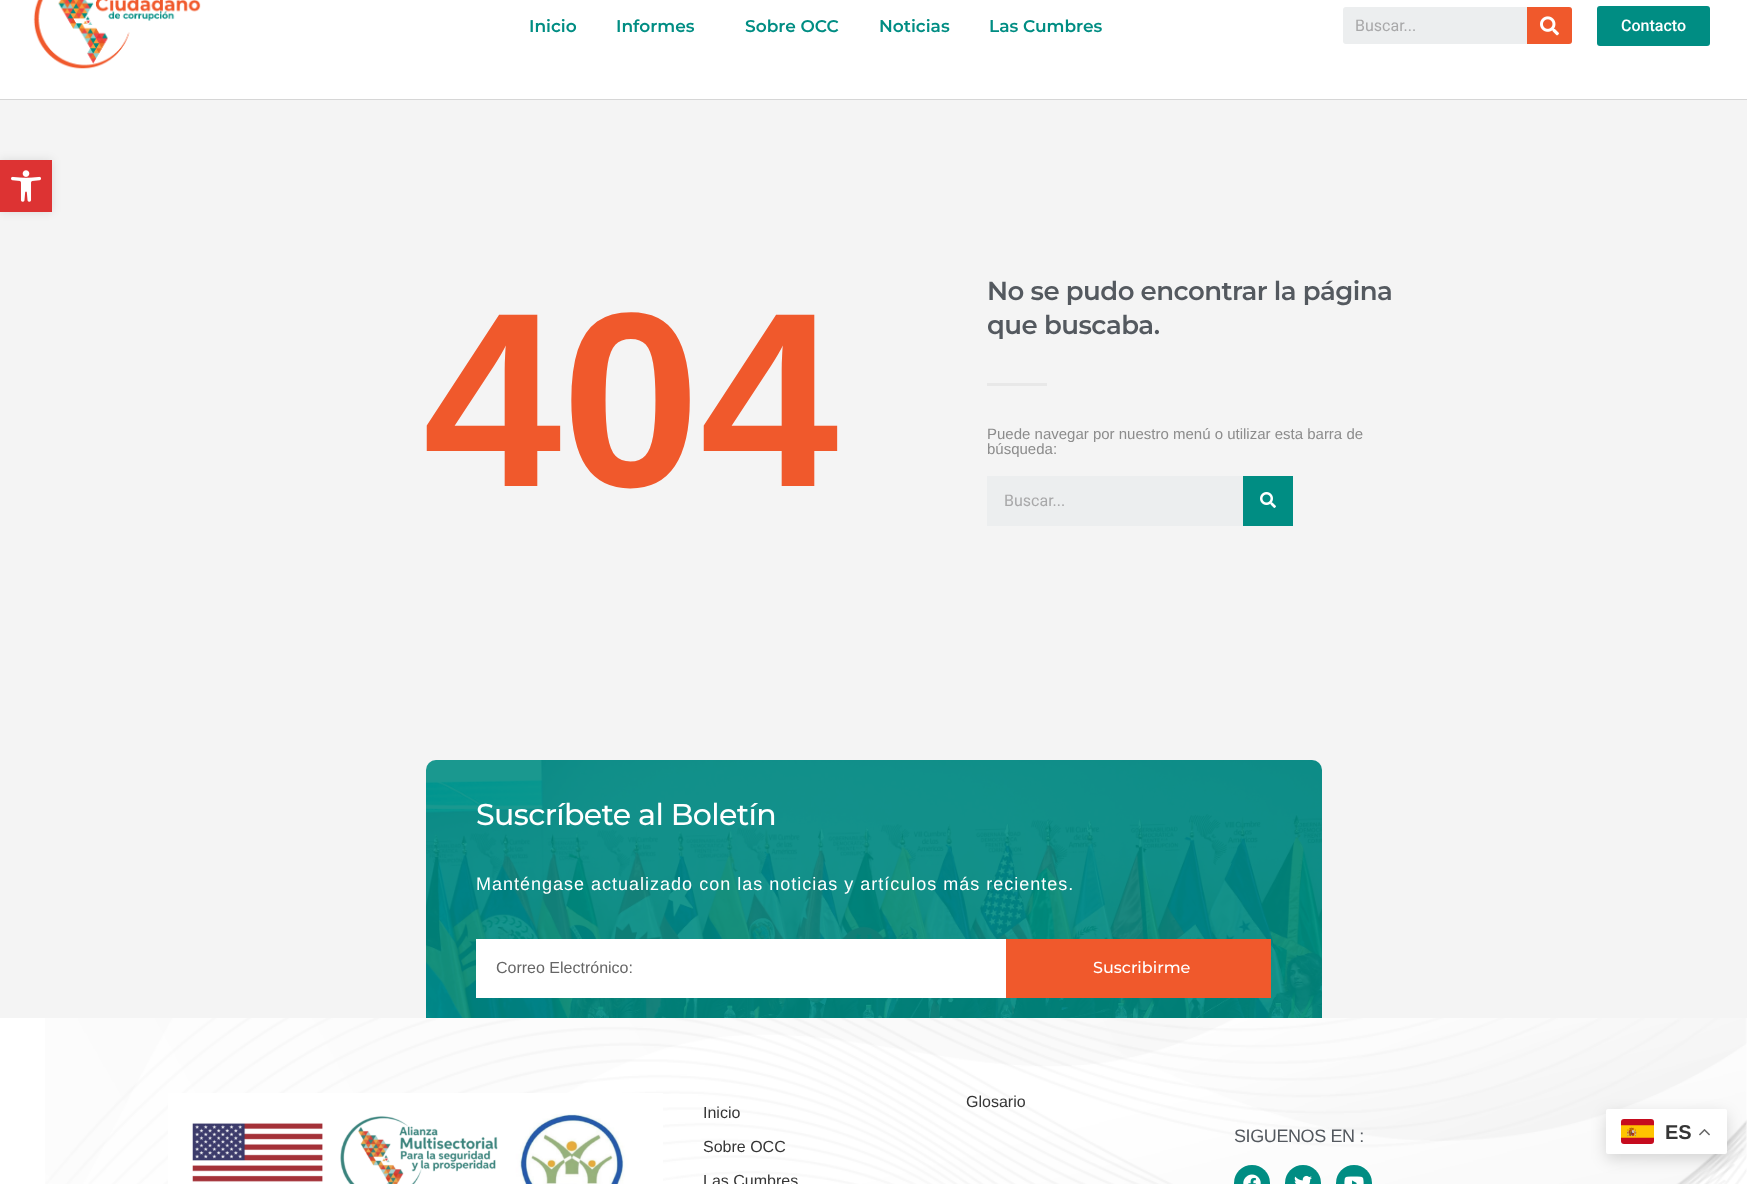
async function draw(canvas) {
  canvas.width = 1747;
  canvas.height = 1184;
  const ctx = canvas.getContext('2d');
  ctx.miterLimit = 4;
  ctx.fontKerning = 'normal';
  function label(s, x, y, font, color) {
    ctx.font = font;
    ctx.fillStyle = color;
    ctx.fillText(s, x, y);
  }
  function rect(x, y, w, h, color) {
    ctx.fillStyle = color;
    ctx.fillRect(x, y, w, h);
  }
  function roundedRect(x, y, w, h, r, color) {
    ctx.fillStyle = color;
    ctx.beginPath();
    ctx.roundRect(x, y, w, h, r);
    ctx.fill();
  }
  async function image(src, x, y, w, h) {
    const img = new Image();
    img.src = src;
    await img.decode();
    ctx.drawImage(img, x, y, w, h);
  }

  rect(0, 0, 1747, 1184, '#fff');
  rect(0, 99, 1747, 1, '#d6d6d6');
  await image('assets/img1.png', 33, 0, 168, 69);
  label('Inicio', 529, 32, '600 17px Montserrat', '#008d83');
  label('Informes', 616, 32, '600 17px Montserrat', '#008d83');
  label('Sobre OCC', 745, 32, '600 17px Montserrat', '#008d83');
  label('Noticias', 879, 32, '600 17px Montserrat', '#008d83');
  label('Las Cumbres', 989, 32, '600 17px Montserrat', '#008d83');
  roundedRect(1343, 7, 229, 37, 3, '#eceeef');
  label('Buscar...', 1355, 31, '16px Roboto', '#a8a8a9');
  ctx.fillStyle = '#f0592c';
  ctx.beginPath();
  ctx.roundRect(1527, 7, 45, 37, [0, 3, 3, 0]);
  ctx.fill();
  await image('assets/img2.png', 1540, 16, 19, 20);
  roundedRect(1597, 6, 113, 40, 3, '#008d83');
  label('Contacto', 1621, 31, '500 16px Roboto', '#fff');
  rect(0, 100, 1747, 918, '#f4f4f4');
  ctx.fillStyle = '#0000001a';
  ctx.filter = 'blur(5px)';
  ctx.beginPath();
  ctx.rect(0, 160, 52, 52);
  ctx.fill();
  ctx.filter = 'none';
  rect(0, 160, 52, 52, '#d33');
  await image('assets/img3.png', 11, 170, 30, 32);
  label('404', 423, 486, 'bold 249px Liberation Sans', '#f0592c');
  ctx.letterSpacing = '-0.5px';
  label('No se pudo encontrar la página', 987, 300, '600 26px Montserrat', '#54595f');
  label('que buscaba.', 987, 334, '600 26px Montserrat', '#54595f');
  rect(987, 383, 60, 3, '#e8e8e8');
  ctx.letterSpacing = '0px';
  label('Puede navegar por nuestro menú o utilizar esta barra de', 987, 439, '15px Liberation Sans', '#8c8c8c');
  label('búsqueda:', 987, 454, '15px Liberation Sans', '#8c8c8c');
  rect(987, 476, 256, 50, '#eceeef');
  label('Buscar...', 1004, 506, '16px Roboto', '#a8a8a9');
  rect(1243, 476, 50, 50, '#008d83');
  await image('assets/img4.png', 1260, 492, 16, 16);
  ctx.beginPath();
  ctx.roundRect(426, 760, 896, 258, [10, 10, 0, 0]);
  ctx.fill();
  await image('assets/img5.png', 426, 760, 896, 258);
  ctx.letterSpacing = '-0.6px';
  label('Suscríbete al Boletín', 476, 825, '500 30px Montserrat', '#fff');
  ctx.letterSpacing = '1px';
  label('Manténgase actualizado con las noticias y artículos más recientes.', 476, 890, '18px Liberation Sans', '#fff');
  rect(476, 939, 530, 59, '#fff');
  ctx.letterSpacing = '0px';
  label('Correo Electrónico:', 496, 973, '16px Liberation Sans', '#666');
  rect(1006, 939, 265, 59, '#f0592c');
  label('Suscribirme', 1093, 973, '500 16px Montserrat', '#fff');
  await image('assets/img6.png', 45, 1018, 1702, 166);
  await image('assets/img7.png', 168, 1093, 495, 91);
  label('Glosario', 966, 1107, '16px Liberation Sans', '#353535');
  label('Inicio', 703, 1118, '16px Liberation Sans', '#353535');
  label('Sobre OCC', 703, 1152, '16px Liberation Sans', '#353535');
  label('Las Cumbres', 703, 1186, '16px Liberation Sans', '#353535');
  ctx.letterSpacing = '-0.4px';
  label('SIGUENOS EN :', 1234, 1142, '18px Liberation Sans', '#54595f');
  ctx.fillStyle = '#008d83';
  ctx.beginPath();
  ctx.arc(1252, 1183, 18, 0, 2 * Math.PI);
  ctx.fill();
  await image('assets/img8.png', 1243, 1174, 18, 10);
  ctx.beginPath();
  ctx.arc(1303, 1183, 18, 0, 2 * Math.PI);
  ctx.fill();
  await image('assets/img9.png', 1294, 1175, 18, 9);
  ctx.beginPath();
  ctx.arc(1354, 1183, 18, 0, 2 * Math.PI);
  ctx.fill();
  await image('assets/img10.png', 1344, 1176, 20, 8);
  ctx.fillStyle = '#00000026';
  ctx.filter = 'blur(7.5px)';
  ctx.beginPath();
  ctx.roundRect(1606, 1114, 121, 45, 2);
  ctx.fill();
  ctx.filter = 'none';
  roundedRect(1606, 1109, 121, 45, 2, '#fff');
  await image('assets/img11.png', 1621, 1119, 33, 25);
  ctx.letterSpacing = '0px';
  label('ES', 1665, 1139, 'bold 20px Liberation Sans', '#353535');
  await image('assets/img12.png', 1699, 1129, 11, 7);
}

draw(document.querySelector('canvas'));
